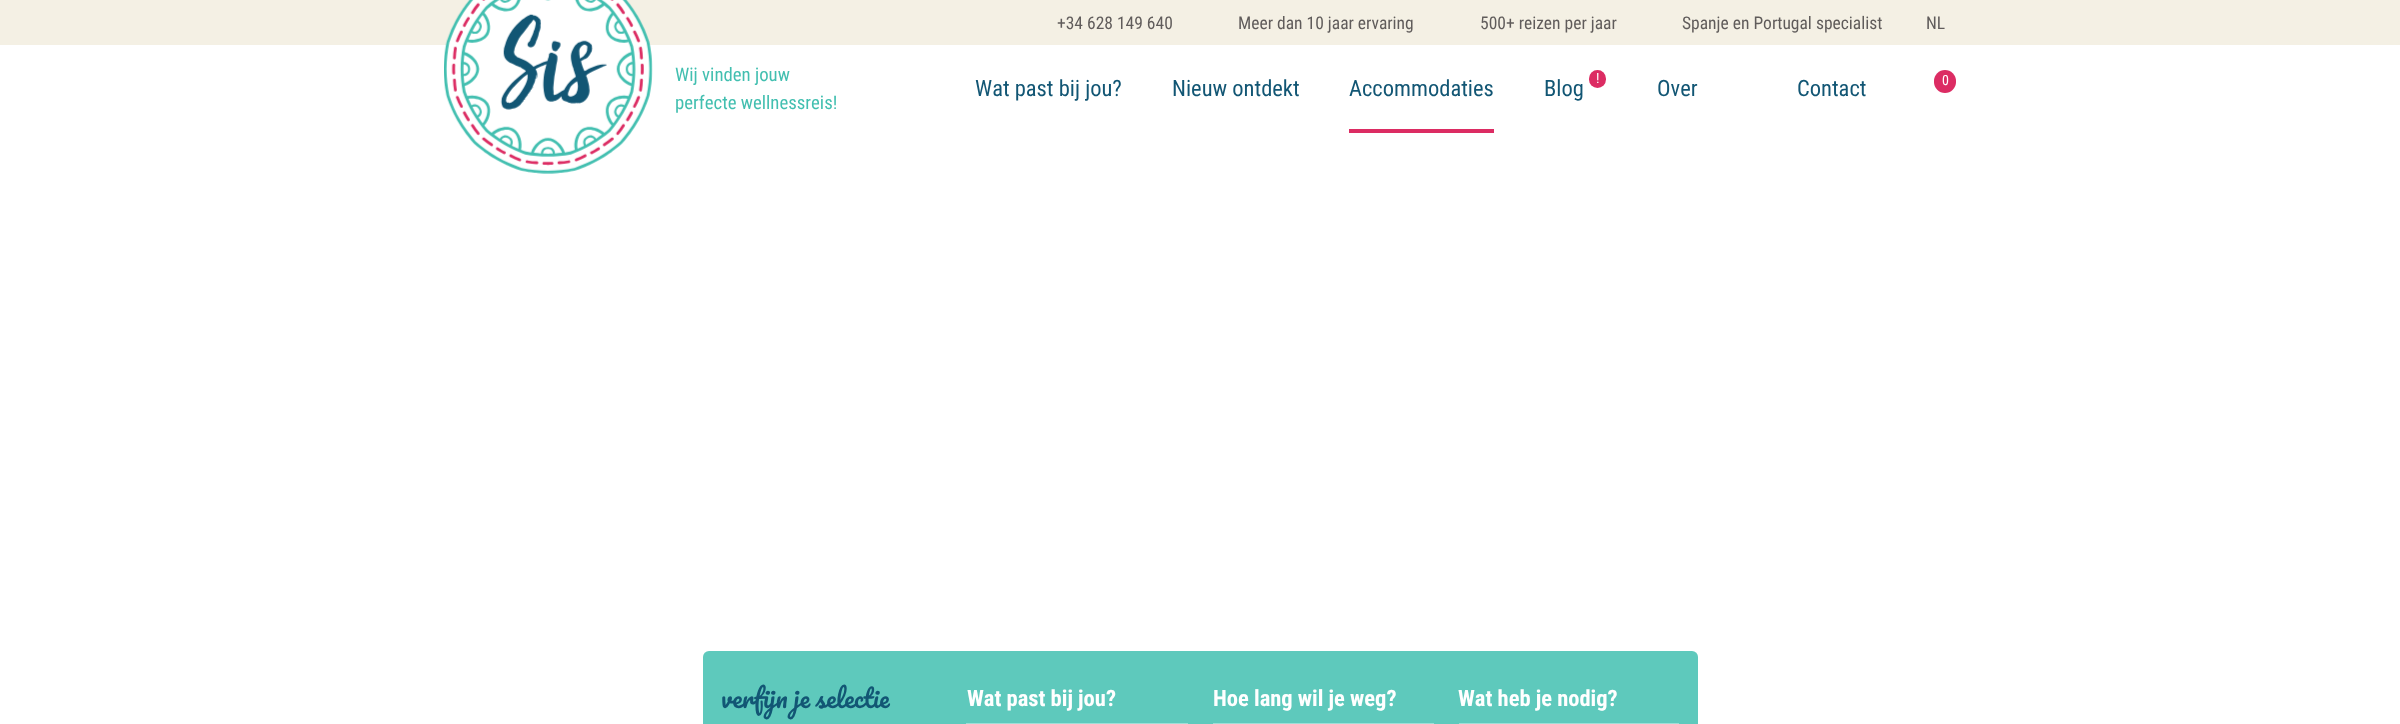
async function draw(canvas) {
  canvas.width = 2400;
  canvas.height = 724;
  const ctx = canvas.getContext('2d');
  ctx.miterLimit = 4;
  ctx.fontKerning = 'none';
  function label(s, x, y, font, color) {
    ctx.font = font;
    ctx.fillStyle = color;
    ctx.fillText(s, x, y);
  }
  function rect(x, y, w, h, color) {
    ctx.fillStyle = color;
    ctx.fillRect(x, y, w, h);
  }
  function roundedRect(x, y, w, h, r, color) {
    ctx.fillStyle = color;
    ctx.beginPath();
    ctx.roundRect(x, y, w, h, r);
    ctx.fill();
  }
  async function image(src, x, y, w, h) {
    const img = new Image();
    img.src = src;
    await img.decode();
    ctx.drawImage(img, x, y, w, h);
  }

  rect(0, 0, 2400, 724, '#fff');
  rect(0, 0, 2400, 45, '#f4f0e4');
  label('+34 628 149 640', 1057, 29, '17.5px Roboto Condensed', '#605c5b');
  label('Meer dan 10 jaar ervaring', 1238, 29, '17.5px Roboto Condensed', '#605c5b');
  label('500+ reizen per jaar', 1480, 29, '17.5px Roboto Condensed', '#605c5b');
  label('Spanje en Portugal specialist', 1682, 29, '17.5px Roboto Condensed', '#605c5b');
  label('NL', 1926, 29, '17.5px Roboto Condensed', '#605c5b');
  await image('assets/img1.png', 444, 0, 209, 174);
  label('Wij vinden jouw', 675, 81, '18.75px Roboto Condensed', '#42bfb0');
  label('perfecte wellnessreis!', 675, 109, '18.75px Roboto Condensed', '#42bfb0');
  label('Wat past bij jou?', 975, 96, '22.5px Roboto Condensed', '#125674');
  label('Nieuw ontdekt', 1172, 96, '22.5px Roboto Condensed', '#125674');
  label('Accommodaties', 1349, 96, '22.5px Roboto Condensed', '#125674');
  rect(1349, 129, 145, 4, '#dc2c63');
  label('Blog', 1544, 96, '22.5px Roboto Condensed', '#125674');
  roundedRect(1589, 70, 17, 18, 8.5, '#dc2c63');
  label('!', 1596, 83, '14px Roboto Condensed', '#fff');
  label('Over', 1657, 96, '22.5px Roboto Condensed', '#125674');
  label('Contact', 1797, 96, '22.5px Roboto Condensed', '#125674');
  roundedRect(1934, 70, 22, 23, 11, '#dc2c63');
  label('0', 1942, 85, '14px Roboto Condensed', '#fff');
  roundedRect(703, 651, 995, 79, 6, '#5ec9bc');
  ctx.wordSpacing = '-1px';
  label('verfijn je selectie', 721, 708, '25px Pacifico', '#125674');
  rect(966, 723, 222, 1, '#9edfd7');
  ctx.wordSpacing = '0px';
  label('Wat past bij jou?', 967, 706, 'bold 22.5px Roboto Condensed', '#fff');
  rect(1213, 723, 221, 1, '#9edfd7');
  label('Hoe lang wil je weg?', 1213, 706, 'bold 22.5px Roboto Condensed', '#fff');
  rect(1459, 723, 220, 1, '#9edfd7');
  label('Wat heb je nodig?', 1458, 706, 'bold 22.5px Roboto Condensed', '#fff');
}

draw(document.querySelector('canvas'));
